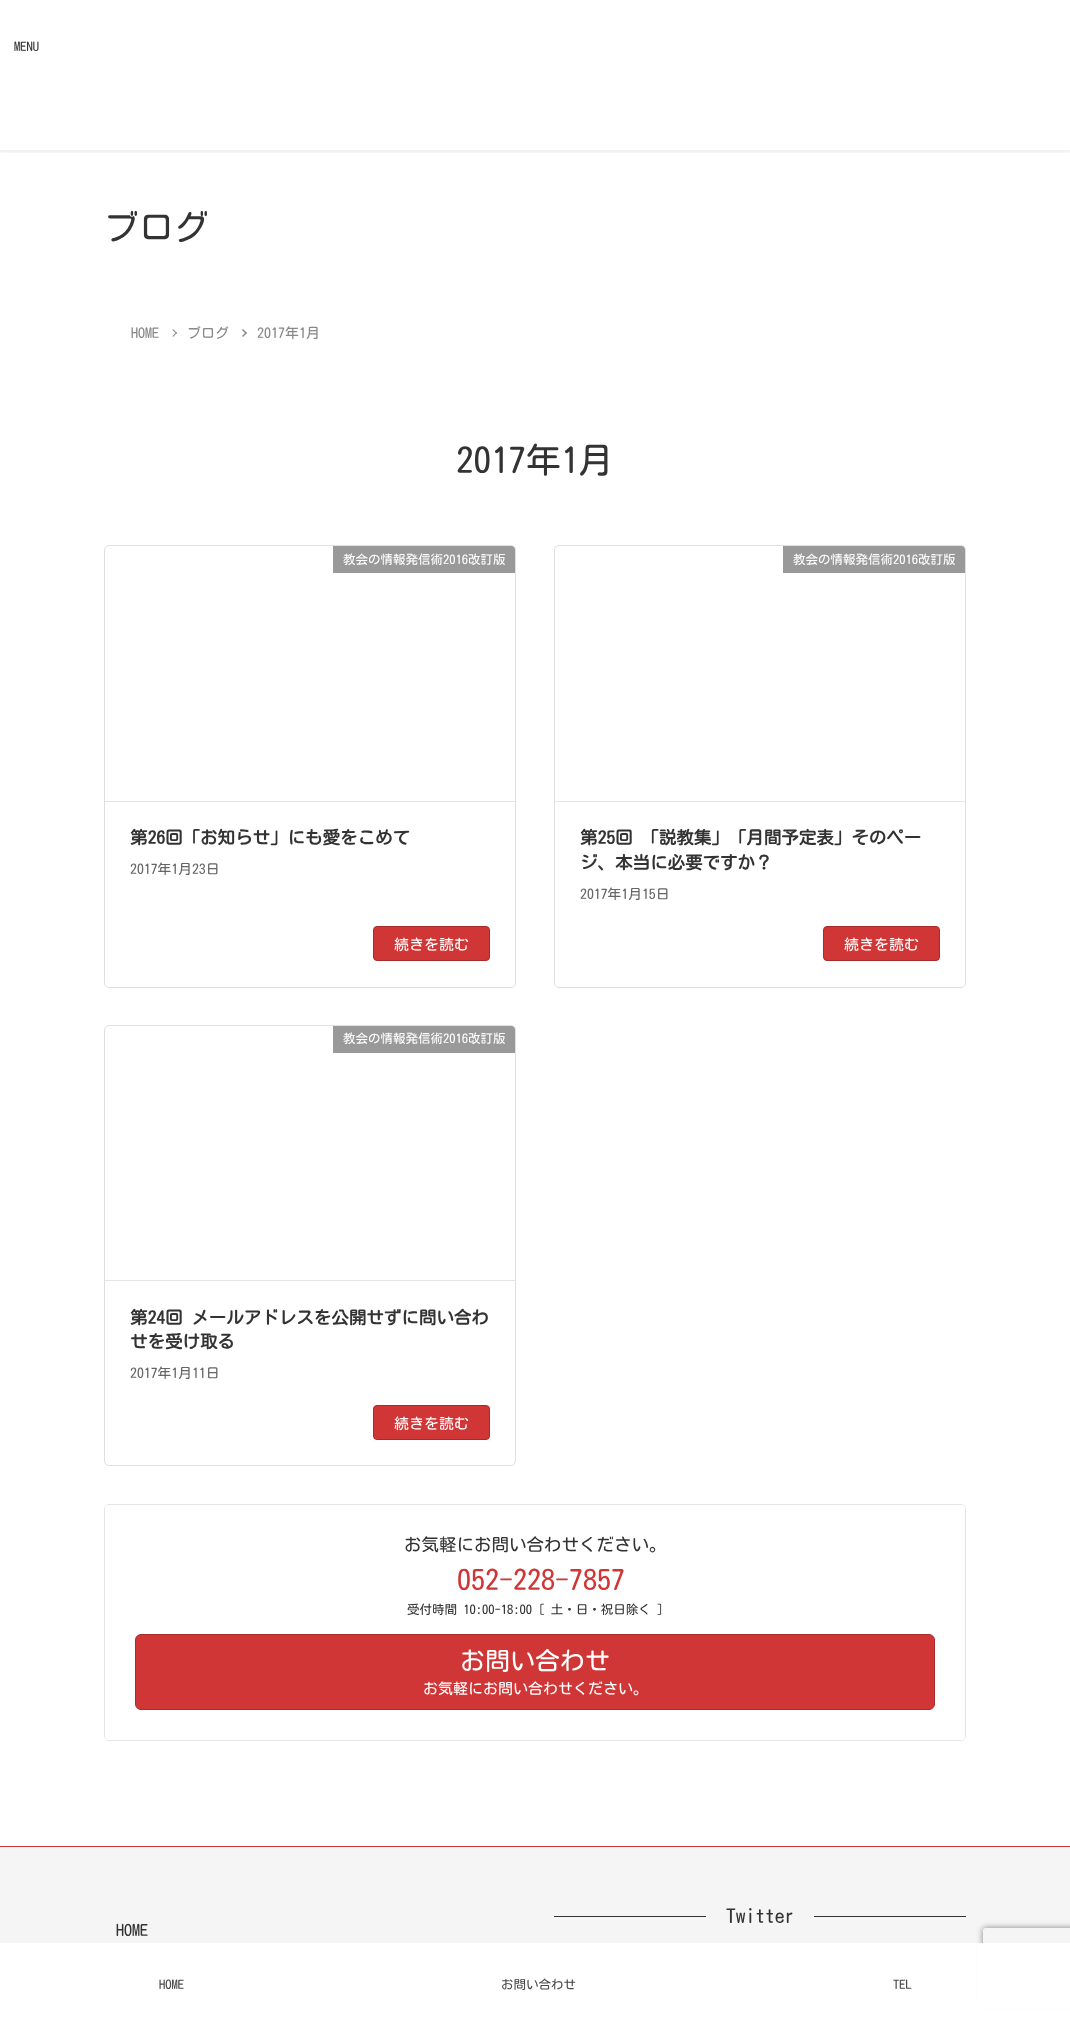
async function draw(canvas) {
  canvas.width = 1070;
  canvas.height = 2019;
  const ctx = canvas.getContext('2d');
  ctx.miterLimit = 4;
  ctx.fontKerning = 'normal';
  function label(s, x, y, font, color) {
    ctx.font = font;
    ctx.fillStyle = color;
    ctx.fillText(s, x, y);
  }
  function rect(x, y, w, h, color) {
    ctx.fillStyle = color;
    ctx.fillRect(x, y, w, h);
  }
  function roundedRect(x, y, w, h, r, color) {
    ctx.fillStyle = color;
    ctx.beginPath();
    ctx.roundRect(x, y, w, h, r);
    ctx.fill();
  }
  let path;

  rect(0, 0, 1070, 2019, '#fff');
  ctx.save();
  ctx.beginPath();
  ctx.rect(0, 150, 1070, 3);
  ctx.clip();
  ctx.fillStyle = '#0000000d';
  ctx.filter = 'blur(1px)';
  ctx.beginPath();
  ctx.rect(-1, 0, 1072, 153);
  ctx.fill();
  ctx.filter = 'none';
  ctx.restore();
  label('MENU', 14, 51, '12.5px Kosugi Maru', '#333');
  label('ブログ', 104, 240, '35px Kosugi Maru', '#333');
  label('HOME', 131, 338, '14px Kosugi Maru', '#888');
  path = new Path2D('M173 329L177 333L176.5 334L172.5 330Z');
  ctx.fill(path);
  path = new Path2D('M176.5 332L177 333L173 337L172.5 336Z');
  ctx.fill(path);
  label('ブログ', 187, 338, '14px Kosugi Maru', '#888');
  path = new Path2D('M243 329L247 333L246 334L242 330Z');
  ctx.fill(path);
  path = new Path2D('M246 332L247 333L243 337L242 336Z');
  ctx.fill(path);
  label('2017年1月', 257, 338, '14px Kosugi Maru', '#888');
  label('2017年1月', 456, 473, '35px Kosugi Maru', '#333');
  ctx.beginPath();
  ctx.roundRect(104.5, 545.5, 411, 442, 4.5);
  ctx.strokeStyle = '#dfdfdf';
  ctx.stroke();
  rect(105, 801, 410, 1, '#e5e5e5');
  ctx.fillStyle = '#999';
  ctx.beginPath();
  ctx.roundRect(333, 546, 182, 27, [0, 4, 0, 0]);
  ctx.fill();
  label('教会の情報発信術2016改訂版', 343, 564, '12.5px Kosugi Maru', '#fff');
  label('第26回「お知らせ」にも愛をこめて', 130, 844, 'bold 17.5px Kosugi Maru', '#333');
  label('2017年1月23日', 130, 874, '13.75px Kosugi Maru', '#666');
  ctx.fillStyle = '#d13636';
  ctx.beginPath();
  ctx.roundRect(373.5, 926.5, 116, 34, 3.5);
  ctx.fill();
  ctx.strokeStyle = '#a72b2b';
  ctx.stroke();
  label('続きを読む', 394, 950, '15px Kosugi Maru', '#fff');
  ctx.beginPath();
  ctx.roundRect(554.5, 545.5, 411, 442, 4.5);
  ctx.strokeStyle = '#dfdfdf';
  ctx.stroke();
  rect(555, 801, 410, 1, '#e5e5e5');
  ctx.fillStyle = '#999';
  ctx.beginPath();
  ctx.roundRect(783, 546, 182, 27, [0, 4, 0, 0]);
  ctx.fill();
  label('教会の情報発信術2016改訂版', 793, 564, '12.5px Kosugi Maru', '#fff');
  label('第25回 「説教集」「月間予定表」そのペー', 580, 844, 'bold 17.5px Kosugi Maru', '#333');
  label('ジ、本当に必要ですか？', 580, 869, 'bold 17.5px Kosugi Maru', '#333');
  label('2017年1月15日', 580, 899, '13.75px Kosugi Maru', '#666');
  ctx.fillStyle = '#d13636';
  ctx.beginPath();
  ctx.roundRect(823.5, 926.5, 116, 34, 3.5);
  ctx.fill();
  ctx.strokeStyle = '#a72b2b';
  ctx.stroke();
  label('続きを読む', 844, 950, '15px Kosugi Maru', '#fff');
  ctx.beginPath();
  ctx.roundRect(104.5, 1025.5, 411, 440, 4.5);
  ctx.strokeStyle = '#dfdfdf';
  ctx.stroke();
  rect(105, 1280, 410, 1, '#e5e5e5');
  ctx.fillStyle = '#999';
  ctx.beginPath();
  ctx.roundRect(333, 1026, 182, 27, [0, 4, 0, 0]);
  ctx.fill();
  label('教会の情報発信術2016改訂版', 343, 1043, '12.5px Kosugi Maru', '#fff');
  label('第24回 メールアドレスを公開せずに問い合わ', 130, 1324, 'bold 17.5px Kosugi Maru', '#333');
  label('せを受け取る', 130, 1348, 'bold 17.5px Kosugi Maru', '#333');
  label('2017年1月11日', 130, 1378, '13.75px Kosugi Maru', '#666');
  ctx.fillStyle = '#d13636';
  ctx.beginPath();
  ctx.roundRect(373.5, 1405.5, 116, 34, 3.5);
  ctx.fill();
  ctx.strokeStyle = '#a72b2b';
  ctx.stroke();
  label('続きを読む', 394, 1429, '15px Kosugi Maru', '#fff');
  ctx.beginPath();
  ctx.roundRect(104.5, 1504.5, 861, 236, 4.5);
  ctx.strokeStyle = '#e5e5e5';
  ctx.stroke();
  roundedRect(105, 1505, 860, 235, 4, '#ffffffcc');
  path = new Path2D('M105 1509V1736L106 1739V1506ZM109 1505L106 1506H964L961 1505ZM965 1509L964 1506V1739L965 1736ZM961 1740L964 1739H106C107 1740 108 1740 109 1740Z');
  ctx.fill(path, 'evenodd');
  label('お気軽にお問い合わせください。', 404, 1551, '17.5px Kosugi Maru', '#333');
  label('052-228-7857', 457, 1590, '28px Kosugi Maru', '#d13636');
  label('受付時間 10:00-18:00 [ 土・日・祝日除く ]', 407, 1614, '12.5px Kosugi Maru', '#333');
  ctx.fillStyle = '#d13636';
  ctx.beginPath();
  ctx.roundRect(135.5, 1634.5, 799, 75, 5.5);
  ctx.fill();
  ctx.strokeStyle = '#a72b2b';
  ctx.stroke();
  label('お問い合わせ', 460, 1670, '25px Kosugi Maru', '#fff');
  label('お気軽にお問い合わせください。', 423, 1694, '15px Kosugi Maru', '#fff');
  rect(0, 1847, 1070, 96, '#f5f5f5');
  rect(0, 1846, 1070, 1, '#d13636');
  rect(554, 1916, 152, 1, '#333');
  label('Twitter', 726, 1923, '19.5px Kosugi Maru', '#333');
  rect(814, 1916, 152, 1, '#333');
  label('HOME', 116, 1936, '16px Kosugi Maru', '#333');
  ctx.save();
  path = new Path2D('M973 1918H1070V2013H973ZM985.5 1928H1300.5C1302 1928 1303 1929 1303 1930.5V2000.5C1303 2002 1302 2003 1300.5 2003H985.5C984 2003 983 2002 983 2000.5V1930.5C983 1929 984 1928 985.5 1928Z');
  ctx.clip(path, 'evenodd');
  ctx.fillStyle = '#808080';
  ctx.filter = 'blur(3px)';
  ctx.beginPath();
  ctx.roundRect(983, 1928, 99, 75, 2.5);
  ctx.fill();
  ctx.filter = 'none';
  ctx.restore();
  rect(977, 1943, 93, 66, '#fff');
  label('HOME', 159, 1989, '12.5px Kosugi Maru', '#494949');
  label('お問い合わせ', 501, 1989, '12.5px Kosugi Maru', '#494949');
  label('TEL', 893, 1989, '12.5px Kosugi Maru', '#494949');
}

draw(document.querySelector('canvas'));
